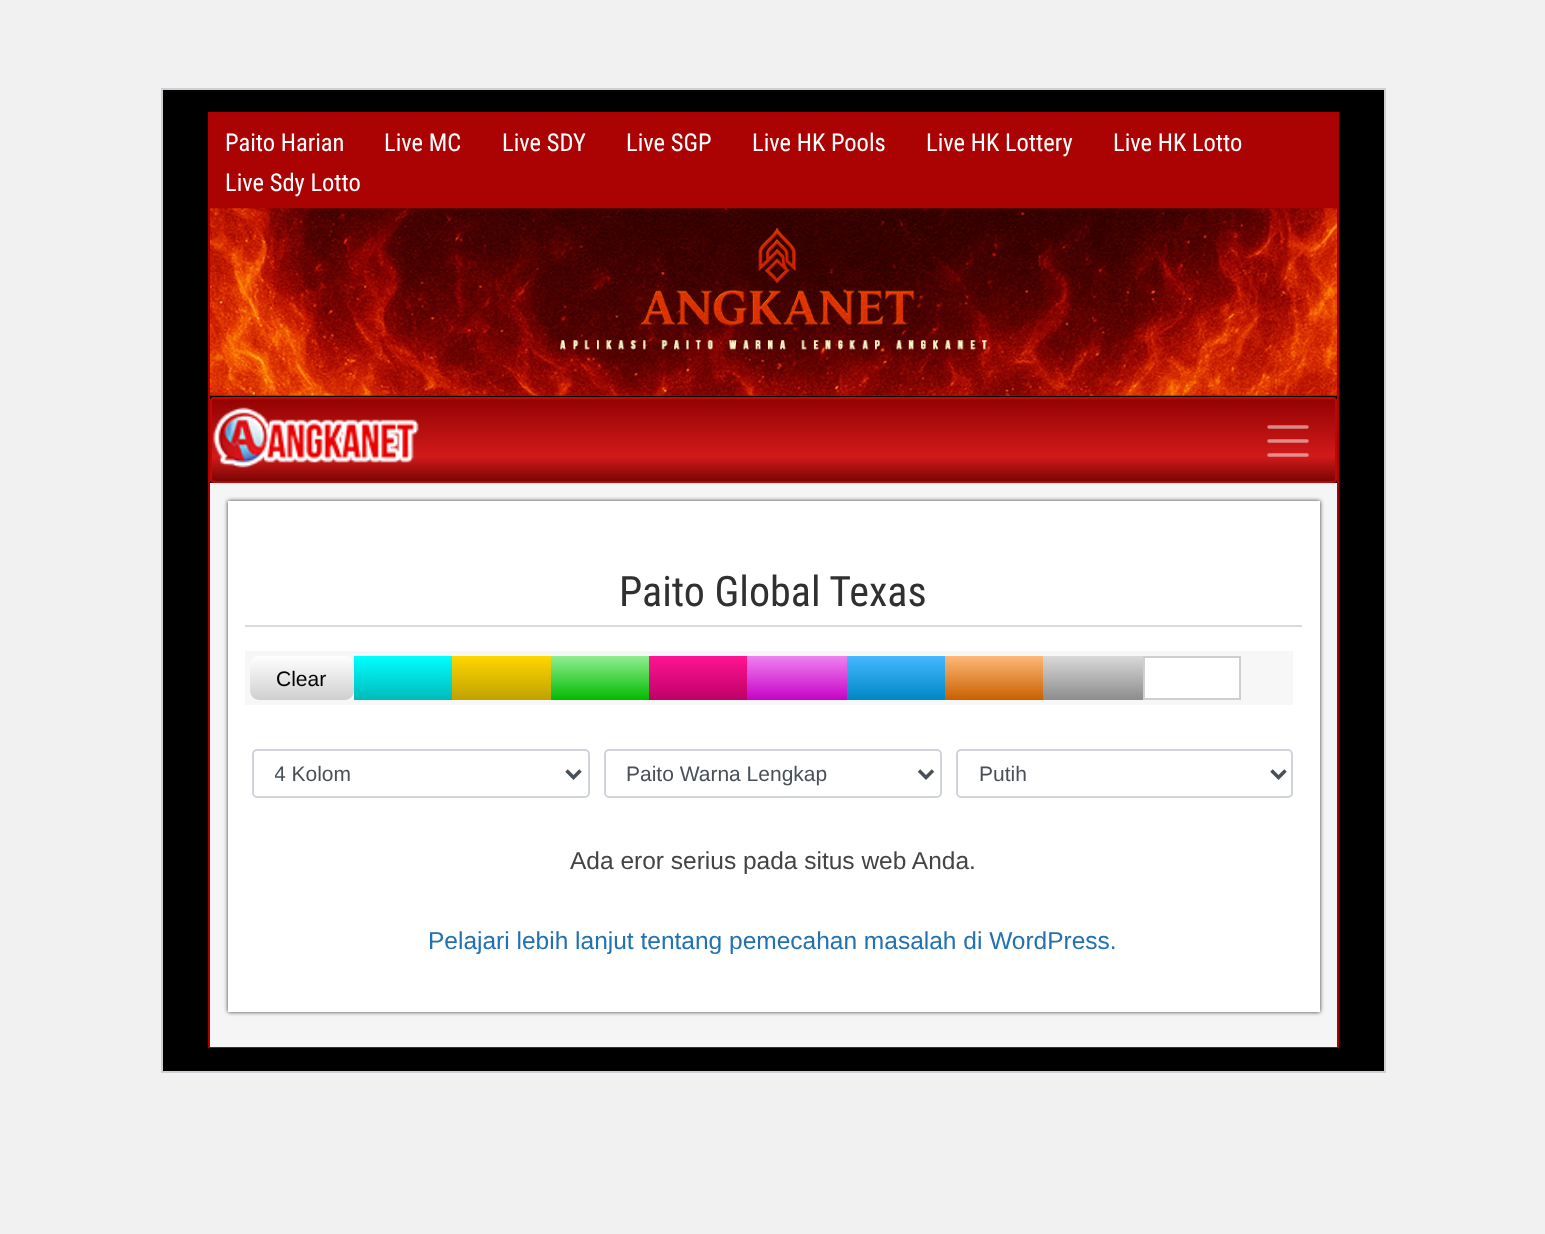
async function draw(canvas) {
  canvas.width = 1545;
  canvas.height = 1234;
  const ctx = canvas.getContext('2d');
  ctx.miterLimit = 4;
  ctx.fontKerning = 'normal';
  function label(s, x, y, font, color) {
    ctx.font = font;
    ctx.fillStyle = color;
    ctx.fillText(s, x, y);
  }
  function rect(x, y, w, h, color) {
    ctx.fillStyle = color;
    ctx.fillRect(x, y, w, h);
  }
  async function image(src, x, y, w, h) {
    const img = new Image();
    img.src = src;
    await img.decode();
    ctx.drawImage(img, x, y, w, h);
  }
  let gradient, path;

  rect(0, 0, 1545, 1234, '#f1f1f1');
  ctx.fillStyle = '#000';
  ctx.beginPath();
  ctx.rect(162, 89, 1223, 983);
  ctx.fill();
  ctx.strokeStyle = '#ccd0d4';
  ctx.lineWidth = 2;
  ctx.stroke();
  ctx.strokeStyle = '#ae0000';
  ctx.strokeRect(209, 113, 1129, 934);
  rect(210, 114, 1127, 282, '#ab0303');
  label('Paito Harian', 225, 151, '24.5px Roboto Condensed', '#fff');
  label('Live MC', 384, 151, '24.5px Roboto Condensed', '#fff');
  label('Live SDY', 502, 151, '24.5px Roboto Condensed', '#fff');
  label('Live SGP', 626, 151, '24.5px Roboto Condensed', '#fff');
  label('Live HK Pools', 752, 151, '24.5px Roboto Condensed', '#fff');
  label('Live HK Lottery', 926, 151, '24.5px Roboto Condensed', '#fff');
  label('Live HK Lotto', 1113, 151, '24.5px Roboto Condensed', '#fff');
  label('Live Sdy Lotto', 225, 191, '24.5px Roboto Condensed', '#fff');
  await image('assets/img1.png', 210, 208, 1127, 188);
  ctx.save();
  ctx.beginPath();
  ctx.roundRect(210, 397, 1127, 86, 4);
  ctx.clip();
  gradient = ctx.createLinearGradient(774, 481, 774, 399);
  gradient.addColorStop(0, '#7c0404');
  gradient.addColorStop(0.3, '#d21a1a');
  gradient.addColorStop(1, '#940202');
  ctx.fillStyle = gradient;
  ctx.fillRect(210, 399, 1127, 82);
  ctx.restore();
  ctx.beginPath();
  ctx.roundRect(211, 398, 1125, 84, 3);
  ctx.strokeStyle = '#c10606';
  ctx.stroke();
  await image('assets/img2.png', 213, 407, 206, 61);
  path = new Path2D('M1269 427H1307M1269 441H1307M1269 455H1307');
  ctx.strokeStyle = '#ffffff80';
  ctx.lineWidth = 3.5;
  ctx.lineCap = 'round';
  ctx.stroke(path);
  rect(210, 483, 1127, 564, '#f5f5f5');
  ctx.fillStyle = '#333';
  ctx.filter = 'blur(2px)';
  ctx.beginPath();
  ctx.rect(228, 501, 1092, 511);
  ctx.fill();
  ctx.filter = 'none';
  rect(228, 501, 1092, 511, '#fff');
  rect(245, 625, 1057, 2, '#dadada');
  label('Paito Global Texas', 619, 606, '42px Roboto Condensed', '#303030');
  rect(245, 651, 1048, 54, '#f7f7f7');
  gradient = ctx.createLinearGradient(302, 656, 302, 700);
  gradient.addColorStop(0, '#fff');
  gradient.addColorStop(1, '#cfcfcf');
  ctx.fillStyle = gradient;
  ctx.beginPath();
  ctx.roundRect(250, 656, 104, 44, 9);
  ctx.fill();
  label('Clear', 276, 686, '21px Liberation Sans', '#000');
  gradient = ctx.createLinearGradient(403, 656, 403, 700);
  gradient.addColorStop(0, '#0ff');
  gradient.addColorStop(1, '#00baba');
  ctx.fillStyle = gradient;
  ctx.fillRect(354, 656, 98, 44);
  gradient = ctx.createLinearGradient(501, 656, 501, 700);
  gradient.addColorStop(0, '#ffd700');
  gradient.addColorStop(1, '#bfa100');
  ctx.fillStyle = gradient;
  ctx.fillRect(452, 656, 99, 44);
  gradient = ctx.createLinearGradient(600, 656, 600, 700);
  gradient.addColorStop(0, '#90ee90');
  gradient.addColorStop(1, '#02ba02');
  ctx.fillStyle = gradient;
  ctx.fillRect(551, 656, 98, 44);
  gradient = ctx.createLinearGradient(698, 656, 698, 700);
  gradient.addColorStop(0, '#ff1493');
  gradient.addColorStop(1, '#bf0067');
  ctx.fillStyle = gradient;
  ctx.fillRect(649, 656, 98, 44);
  gradient = ctx.createLinearGradient(797, 656, 797, 700);
  gradient.addColorStop(0, '#ee82ee');
  gradient.addColorStop(1, '#c702c7');
  ctx.fillStyle = gradient;
  ctx.fillRect(747, 656, 100, 44);
  gradient = ctx.createLinearGradient(896, 656, 896, 700);
  gradient.addColorStop(0, '#45b8ff');
  gradient.addColorStop(1, '#0086c4');
  ctx.fillStyle = gradient;
  ctx.fillRect(847, 656, 98, 44);
  gradient = ctx.createLinearGradient(994, 656, 994, 700);
  gradient.addColorStop(0, '#ffb878');
  gradient.addColorStop(1, '#c96000');
  ctx.fillStyle = gradient;
  ctx.fillRect(945, 656, 98, 44);
  gradient = ctx.createLinearGradient(1093, 656, 1093, 700);
  gradient.addColorStop(0, '#d9d9d9');
  gradient.addColorStop(1, '#8c8c8c');
  ctx.fillStyle = gradient;
  ctx.fillRect(1043, 656, 100, 44);
  ctx.fillStyle = '#fff';
  ctx.beginPath();
  ctx.rect(1144, 657, 96, 42);
  ctx.fill();
  ctx.strokeStyle = '#cfcfcf';
  ctx.lineWidth = 2;
  ctx.stroke();
  ctx.beginPath();
  ctx.roundRect(253, 750, 336, 47, 4);
  ctx.strokeStyle = '#ced4da';
  ctx.stroke();
  path = new Path2D('M566.5 770.5L573.5 777.5L580.5 770.5');
  ctx.strokeStyle = '#495057';
  ctx.lineWidth = 3.5;
  ctx.lineCap = 'butt';
  ctx.stroke(path);
  ctx.save();
  ctx.beginPath();
  ctx.rect(275, 760, 271, 28);
  ctx.clip();
  label('4 Kolom', 274, 781, '21px Arimo', '#495057');
  ctx.restore();
  ctx.beginPath();
  ctx.roundRect(605, 750, 336, 47, 4);
  ctx.strokeStyle = '#ced4da';
  ctx.lineWidth = 2;
  ctx.stroke();
  path = new Path2D('M919 770.5L926 777.5L933 770.5');
  ctx.strokeStyle = '#495057';
  ctx.lineWidth = 3.5;
  ctx.stroke(path);
  label('Paito Warna Lengkap', 626, 781, '21px Arimo', '#495057');
  ctx.beginPath();
  ctx.roundRect(957, 750, 335, 47, 4);
  ctx.strokeStyle = '#ced4da';
  ctx.lineWidth = 2;
  ctx.stroke();
  path = new Path2D('M1271.5 770.5L1278.5 777.5L1285.5 770.5');
  ctx.strokeStyle = '#495057';
  ctx.lineWidth = 3.5;
  ctx.stroke(path);
  label('Putih', 979, 781, '21px Arimo', '#495057');
  label('Ada eror serius pada situs web Anda.', 570, 869, '24.5px Arimo', '#444');
  label('Pelajari lebih lanjut tentang pemecahan masalah di WordPress.', 428, 949, '24.5px Arimo', '#2271b1');
}

draw(document.querySelector('canvas'));
